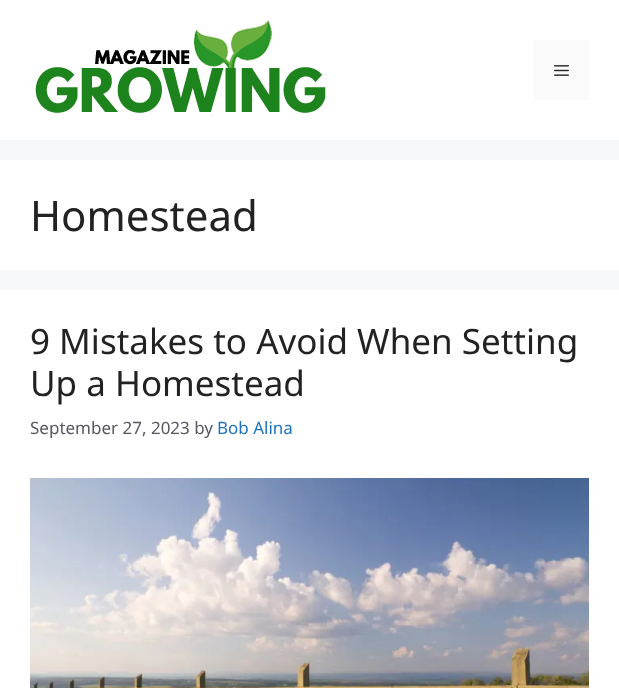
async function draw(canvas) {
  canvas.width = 619;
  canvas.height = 688;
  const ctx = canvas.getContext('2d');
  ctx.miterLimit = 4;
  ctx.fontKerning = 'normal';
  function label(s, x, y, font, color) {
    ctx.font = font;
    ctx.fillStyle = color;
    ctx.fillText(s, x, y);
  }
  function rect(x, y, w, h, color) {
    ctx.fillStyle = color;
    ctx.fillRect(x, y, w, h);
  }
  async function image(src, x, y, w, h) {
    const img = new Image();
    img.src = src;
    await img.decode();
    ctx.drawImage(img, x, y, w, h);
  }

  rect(0, 0, 619, 688, '#f7f8f9');
  rect(0, 0, 619, 140, '#fff');
  await image('assets/img1.png', 35, 20, 291, 98);
  rect(534, 40, 55, 60, '#fafafa');
  await image('assets/img2.png', 554, 65, 15, 11);
  rect(0, 160, 619, 110, '#fff');
  label('Homestead', 30, 231, '42px Noto Sans', '#222');
  rect(0, 290, 619, 398, '#fff');
  label('9 Mistakes to Avoid When Setting', 30, 354, '35px Noto Sans', '#222');
  label('Up a Homestead', 30, 396, '35px Noto Sans', '#222');
  label('September 27, 2023 by', 30, 434, '17px Noto Sans', '#575760');
  label('Bob Alina', 217, 434, '17px Noto Sans', '#1e73be');
  await image('assets/img3.png', 30, 478, 559, 210);
}

draw(document.querySelector('canvas'));
